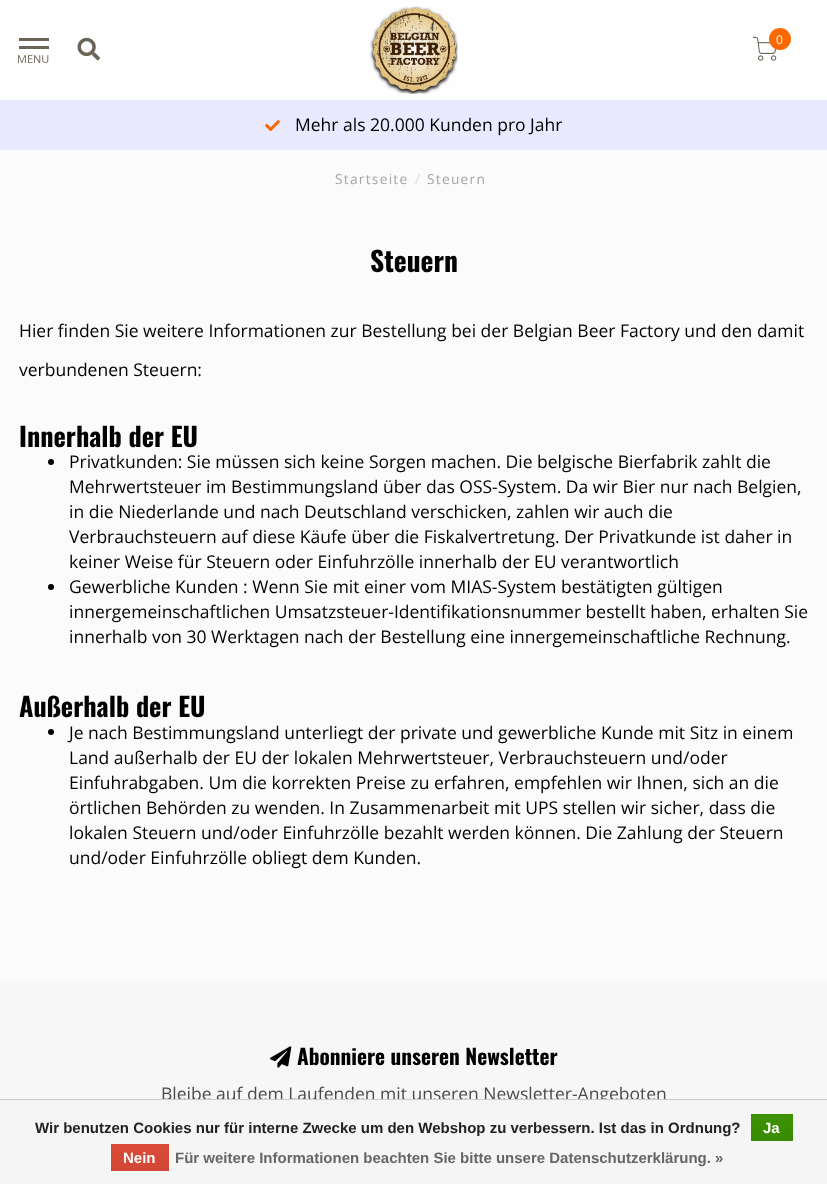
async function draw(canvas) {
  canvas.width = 827;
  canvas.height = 1184;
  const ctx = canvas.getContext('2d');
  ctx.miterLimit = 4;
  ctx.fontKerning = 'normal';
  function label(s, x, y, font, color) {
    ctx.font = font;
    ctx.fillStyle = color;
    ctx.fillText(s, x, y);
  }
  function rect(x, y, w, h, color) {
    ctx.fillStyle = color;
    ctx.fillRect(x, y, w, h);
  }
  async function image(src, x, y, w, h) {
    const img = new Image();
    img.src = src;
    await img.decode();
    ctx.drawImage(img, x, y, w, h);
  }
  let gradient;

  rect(0, 0, 827, 1184, '#fbfbfb');
  rect(0, 0, 827, 100, '#fff');
  await image('assets/img1.png', 370, 6, 88, 88);
  await image('assets/img2.png', 752, 36, 25, 25);
  ctx.fillStyle = '#fc6800';
  ctx.beginPath();
  ctx.arc(780, 39, 11, 0, 2 * Math.PI);
  ctx.fill();
  label('0', 776, 44, '12px Open Sans', '#fff');
  rect(19, 38, 30, 3, '#6c6557');
  rect(19, 46, 30, 3, '#6c6557');
  label('MENU', 17, 63, '11px Open Sans', '#6c6557');
  await image('assets/img3.png', 77, 37, 23, 24);
  rect(0, 100, 827, 50, '#e9eaff');
  await image('assets/img4.png', 265, 120, 15, 12);
  label('Mehr als 20.000 Kunden pro Jahr', 295, 131, '17.5px Open Sans', '#000');
  ctx.letterSpacing = '1.25px';
  label('Startseite', 335, 184, '13.75px Open Sans', '#a5a5a5');
  label('/', 415, 184, '13.75px Open Sans', '#ddd');
  label('Steuern', 427, 184, '13.75px Open Sans', '#a5a5a5');
  ctx.letterSpacing = '0px';
  label('Steuern', 370, 272, 'bold 27.5px Oswald', '#000');
  label('Hier finden Sie weitere Informationen zur Bestellung bei der Belgian Beer Factory und den damit', 19, 337, '17.5px Open Sans', '#000');
  label('verbundenen Steuern:', 19, 376, '17.5px Open Sans', '#000');
  label('Innerhalb der EU', 19, 447, 'bold 26.25px Oswald', '#000');
  ctx.beginPath();
  ctx.arc(51, 462, 3, 0, 2 * Math.PI);
  ctx.fill();
  label('Privatkunden: Sie müssen sich keine Sorgen machen. Die belgische Bierfabrik zahlt die', 69, 468, '17.5px Open Sans', '#000');
  label('Mehrwertsteuer im Bestimmungsland über das OSS-System. Da wir Bier nur nach Belgien,', 69, 493, '17.5px Open Sans', '#000');
  label('in die Niederlande und nach Deutschland verschicken, zahlen wir auch die', 69, 518, '17.5px Open Sans', '#000');
  label('Verbrauchsteuern auf diese Käufe über die Fiskalvertretung. Der Privatkunde ist daher in', 69, 543, '17.5px Open Sans', '#000');
  label('keiner Weise für Steuern oder Einfuhrzölle innerhalb der EU verantwortlich', 69, 568, '17.5px Open Sans', '#000');
  ctx.beginPath();
  ctx.arc(51, 587, 3, 0, 2 * Math.PI);
  ctx.fill();
  label('Gewerbliche Kunden : Wenn Sie mit einer vom MIAS-System bestätigten gültigen', 69, 593, '17.5px Open Sans', '#000');
  label('innergemeinschaftlichen Umsatzsteuer-Identifikationsnummer bestellt haben, erhalten Sie', 69, 618, '17.5px Open Sans', '#000');
  label('innerhalb von 30 Werktagen nach der Bestellung eine innergemeinschaftliche Rechnung.', 69, 643, '17.5px Open Sans', '#000');
  label('Außerhalb der EU', 19, 717, 'bold 26.25px Oswald', '#000');
  ctx.beginPath();
  ctx.arc(51, 732, 3, 0, 2 * Math.PI);
  ctx.fill();
  label('Je nach Bestimmungsland unterliegt der private und gewerbliche Kunde mit Sitz in einem', 69, 739, '17.5px Open Sans', '#000');
  label('Land außerhalb der EU der lokalen Mehrwertsteuer, Verbrauchsteuern und/oder', 69, 764, '17.5px Open Sans', '#000');
  label('Einfuhrabgaben. Um die korrekten Preise zu erfahren, empfehlen wir Ihnen, sich an die', 69, 789, '17.5px Open Sans', '#000');
  label('örtlichen Behörden zu wenden. In Zusammenarbeit mit UPS stellen wir sicher, dass die', 69, 814, '17.5px Open Sans', '#000');
  label('lokalen Steuern und/oder Einfuhrzölle bezahlt werden können. Die Zahlung der Steuern', 69, 839, '17.5px Open Sans', '#000');
  label('und/oder Einfuhrzölle obliegt dem Kunden.', 69, 864, '17.5px Open Sans', '#000');
  rect(0, 983, 827, 116, '#f7f7f7');
  await image('assets/img5.png', 270, 1046, 22, 22);
  label('Abonniere unseren Newsletter', 297, 1065, 'bold 21.25px Oswald', '#000');
  label('Bleibe auf dem Laufenden mit unseren Newsletter-Angeboten', 161, 1100, '17.5px Open Sans', '#4a4a4a');
  rect(0, 1100, 827, 84, '#f5f5f5');
  rect(0, 1099, 827, 1, '#ccc');
  label('Wir benutzen Cookies nur für interne Zwecke um den Webshop zu verbessern. Ist das in Ordnung?', 35, 1133, 'bold 15px Liberation Sans', '#222');
  gradient = ctx.createLinearGradient(772, 1114, 772, 1141);
  gradient.addColorStop(0, '#3c9300');
  gradient.addColorStop(1, '#398a00');
  ctx.fillStyle = gradient;
  ctx.fillRect(751, 1114, 42, 27);
  label('Ja', 763, 1133, 'bold 15px Liberation Sans', '#fff');
  gradient = ctx.createLinearGradient(140, 1144, 140, 1171);
  gradient.addColorStop(0, '#dc4a38');
  gradient.addColorStop(1, '#d14836');
  ctx.fillStyle = gradient;
  ctx.fillRect(111, 1144, 58, 27);
  label('Nein', 123, 1163, 'bold 15px Liberation Sans', '#fff');
  label('Für weitere Informationen beachten Sie bitte unsere Datenschutzerklärung. »', 175, 1163, 'bold 15px Liberation Sans', '#666');
}

draw(document.querySelector('canvas'));
